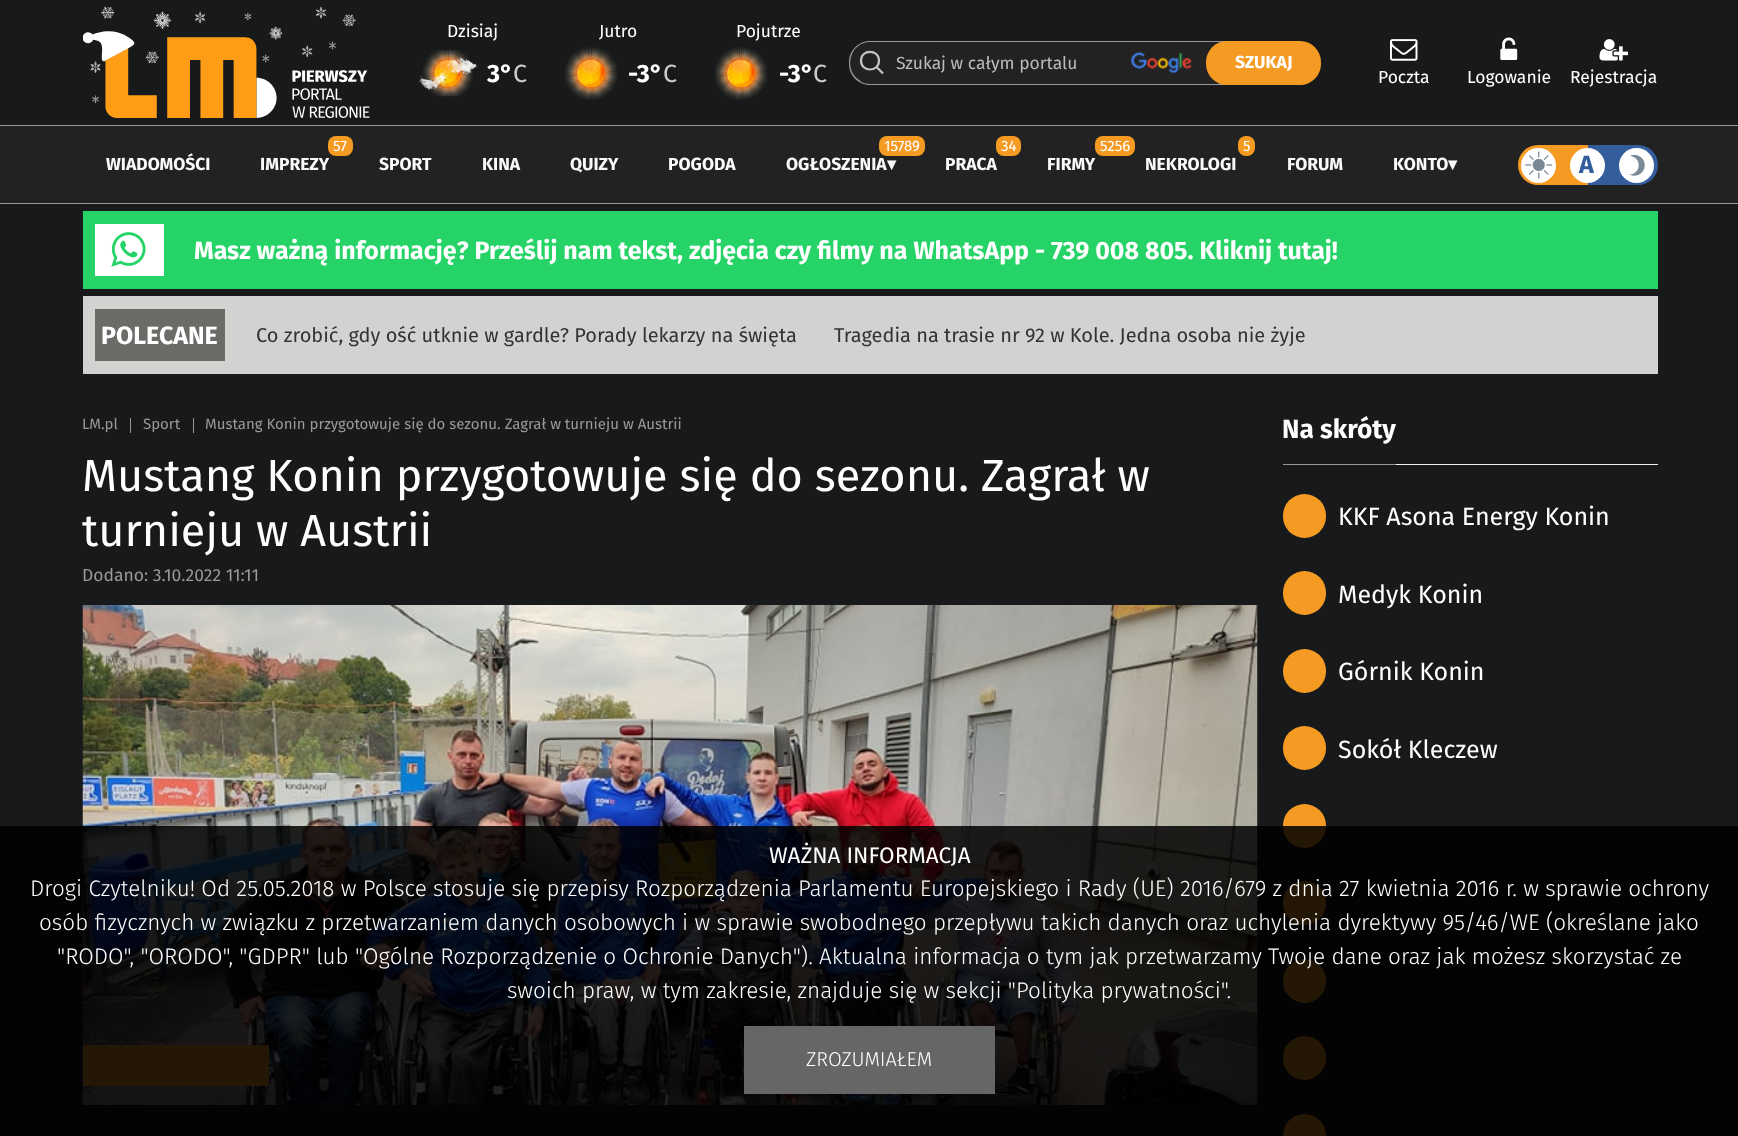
async function draw(canvas) {
  canvas.width = 1738;
  canvas.height = 1136;
  const ctx = canvas.getContext('2d');
  ctx.miterLimit = 4;
  ctx.fontKerning = 'normal';
  function label(s, x, y, font, color) {
    ctx.font = font;
    ctx.fillStyle = color;
    ctx.fillText(s, x, y);
  }
  function rect(x, y, w, h, color) {
    ctx.fillStyle = color;
    ctx.fillRect(x, y, w, h);
  }
  function roundedRect(x, y, w, h, r, color) {
    ctx.fillStyle = color;
    ctx.beginPath();
    ctx.roundRect(x, y, w, h, r);
    ctx.fill();
  }
  async function image(src, x, y, w, h) {
    const img = new Image();
    img.src = src;
    await img.decode();
    ctx.drawImage(img, x, y, w, h);
  }
  let path;

  rect(0, 0, 1738, 1136, '#18191a');
  await image('assets/img1.png', 83, 6, 287, 112);
  label('Dzisiaj', 447, 37, '17.5px Fira Sans', '#fff');
  await image('assets/img2.png', 419, 50, 59, 47);
  label('3°', 487, 82, 'bold 25px Fira Sans', '#fff');
  label('C', 513, 82, '25px Fira Sans', '#ccc');
  label('Jutro', 599, 37, '17.5px Fira Sans', '#fff');
  await image('assets/img3.png', 564, 47, 54, 53);
  label('-3°', 628, 82, 'bold 25px Fira Sans', '#fff');
  label('C', 663, 82, '25px Fira Sans', '#ccc');
  label('Pojutrze', 736, 37, '17.5px Fira Sans', '#fff');
  await image('assets/img3.png', 714, 47, 54, 53);
  label('-3°', 779, 82, 'bold 25px Fira Sans', '#fff');
  label('C', 813, 82, '25px Fira Sans', '#ccc');
  ctx.fillStyle = '#222';
  ctx.beginPath();
  ctx.roundRect(849, 41, 379, 44, [21, 0, 0, 21]);
  ctx.fill();
  ctx.fillStyle = '#999';
  path = new Path2D('M870 41H1228V85H870C858 85 849 75 849 64V62C849 51 858 41 870 41ZM870 42H1228V84H870C866 84 862 83 859 80C843 69 850 42 870 42Z');
  ctx.fill(path, 'evenodd');
  path = new Path2D('M861 60.5C861 49 879 49 879 60.5C879 72.5 861 72.5 861 60.5ZM876.5 67L883 73.5');
  ctx.strokeStyle = '#c4c4c4';
  ctx.lineWidth = 2.2;
  ctx.stroke(path);
  await image('assets/img4.png', 1131, 52, 61, 21);
  label('Szukaj w całym portalu', 896, 69, '17.5px Fira Sans', '#bbb');
  roundedRect(1206, 41, 115, 44, 21, '#f59b23');
  label('SZUKAJ', 1235, 68, 'bold 17.5px Fira Sans', '#fff');
  await image('assets/img5.png', 1390, 39, 28, 22);
  label('Poczta', 1378, 83, '17.5px Fira Sans', '#fff');
  await image('assets/img6.png', 1500, 37, 18, 23);
  label('Logowanie', 1467, 83, '17.5px Fira Sans', '#fff');
  await image('assets/img7.png', 1599, 39, 30, 22);
  label('Rejestracja', 1570, 83, '17.5px Fira Sans', '#fff');
  rect(0, 126, 1738, 77, '#222');
  rect(0, 125, 1738, 1, '#999');
  rect(0, 203, 1738, 1, '#999');
  label('WIADOMOŚCI', 106, 170, 'bold 17.5px Fira Sans', '#f9f9f9');
  roundedRect(328, 136, 25, 20, 8, '#f59b23');
  label('57', 333, 151, '15px Fira Sans', '#fff');
  label('IMPREZY', 260, 170, 'bold 17.5px Fira Sans', '#f9f9f9');
  label('SPORT', 379, 170, 'bold 17.5px Fira Sans', '#f9f9f9');
  label('KINA', 482, 170, 'bold 17.5px Fira Sans', '#f9f9f9');
  label('QUIZY', 570, 170, 'bold 17.5px Fira Sans', '#f9f9f9');
  label('POGODA', 668, 170, 'bold 17.5px Fira Sans', '#f9f9f9');
  roundedRect(879, 136, 46, 20, 8, '#f59b23');
  label('15789', 884, 151, '15px Fira Sans', '#fff');
  label('OGŁOSZENIA', 786, 170, 'bold 17.5px Fira Sans', '#f9f9f9');
  label('▾', 887, 170, 'bold 17.5px DejaVu Sans', '#f9f9f9');
  roundedRect(996, 136, 25, 20, 8, '#f59b23');
  label('34', 1001, 151, '15px Fira Sans', '#fff');
  label('PRACA', 945, 170, 'bold 17.5px Fira Sans', '#f9f9f9');
  roundedRect(1095, 136, 40, 20, 8, '#f59b23');
  label('5256', 1100, 151, '15px Fira Sans', '#fff');
  label('FIRMY', 1047, 170, 'bold 17.5px Fira Sans', '#f9f9f9');
  roundedRect(1238, 136, 17, 20, 8, '#f59b23');
  label('5', 1243, 151, '15px Fira Sans', '#fff');
  label('NEKROLOGI', 1145, 170, 'bold 17.5px Fira Sans', '#f9f9f9');
  label('FORUM', 1287, 170, 'bold 17.5px Fira Sans', '#f9f9f9');
  label('KONTO', 1393, 170, 'bold 17.5px Fira Sans', '#f9f9f9');
  label('▾', 1448, 170, 'bold 17.5px DejaVu Sans', '#f9f9f9');
  ctx.fillStyle = '#f59b23';
  ctx.beginPath();
  ctx.roundRect(1518, 145, 70, 40, [20, 0, 0, 20]);
  ctx.fill();
  ctx.fillStyle = '#345d9d';
  ctx.beginPath();
  ctx.roundRect(1588, 145, 70, 40, [0, 20, 20, 0]);
  ctx.fill();
  ctx.fillStyle = '#fff';
  ctx.beginPath();
  ctx.arc(1538.5, 165.5, 17.5, 0, 2 * Math.PI);
  ctx.fill();
  await image('assets/img8.png', 1525, 151, 28, 28);
  ctx.beginPath();
  ctx.arc(1587.5, 165.5, 17.5, 0, 2 * Math.PI);
  ctx.fill();
  label('A', 1579, 173, 'bold 25px Fira Sans', '#345d9d');
  ctx.fillStyle = '#fff';
  ctx.beginPath();
  ctx.arc(1636.5, 165.5, 17.5, 0, 2 * Math.PI);
  ctx.fill();
  await image('assets/img9.png', 1629, 154, 16, 22);
  rect(83, 211, 1575, 78, '#25d366');
  rect(95, 224, 69, 52, '#fff');
  await image('assets/img10.png', 111, 232, 35, 35);
  label('Masz ważną informację? Prześlij nam tekst, zdjęcia czy filmy na WhatsApp - 739 008 805. Kliknij tutaj!', 194, 259, 'bold 25px Fira Sans', '#fff');
  rect(83, 296, 1575, 78, '#d2d2d1');
  rect(95, 309, 130, 52, '#6d6b67');
  label('POLECANE', 101, 344, 'bold 25px Fira Sans', '#fff');
  label('Co zrobić, gdy ość utknie w gardle? Porady lekarzy na święta', 256, 342, '20px Fira Sans', '#333');
  label('Tragedia na trasie nr 92 w Kole. Jedna osoba nie żyje', 834, 342, '20px Fira Sans', '#333');
  label('LM.pl', 82, 429, '15px Fira Sans', '#999');
  rect(130, 418, 1, 15, '#999');
  label('Sport', 143, 429, '15px Fira Sans', '#999');
  rect(193, 418, 1, 15, '#999');
  label('Mustang Konin przygotowuje się do sezonu. Zagrał w turnieju w Austrii', 205, 429, '15px Fira Sans', '#999');
  label('Mustang Konin przygotowuje się do sezonu. Zagrał w', 82, 491, '45px Fira Sans', '#fff');
  label('turnieju w Austrii', 82, 546, '45px Fira Sans', '#fff');
  label('Dodano: 3.10.2022 11:11', 82, 581, '17.5px Fira Sans', '#999');
  await image('assets/img11.png', 82, 605, 1176, 500);
  rect(83, 1045, 186, 41, '#f59b23');
  rect(1396, 464, 262, 1, '#f3f3f3');
  label('Na skróty', 1282, 438, 'bold 26.25px Fira Sans', '#fff');
  rect(1283, 464, 113, 1, '#999');
  roundedRect(1283, 494, 43, 44, 21.5, '#f59b23');
  label('KKF Asona Energy Konin', 1338, 525, '25px Fira Sans', '#fff');
  roundedRect(1283, 571, 43, 44, 21.5, '#f59b23');
  label('Medyk Konin', 1338, 603, '25px Fira Sans', '#fff');
  roundedRect(1283, 649, 43, 44, 21.5, '#f59b23');
  label('Górnik Konin', 1338, 680, '25px Fira Sans', '#fff');
  roundedRect(1283, 726, 43, 44, 21.5, '#f59b23');
  label('Sokół Kleczew', 1338, 758, '25px Fira Sans', '#fff');
  roundedRect(1283, 804, 43, 44, 21.5, '#f59b23');
  roundedRect(1283, 881, 43, 44, 21.5, '#f59b23');
  roundedRect(1283, 959, 43, 44, 21.5, '#f59b23');
  roundedRect(1283, 1036, 43, 44, 21.5, '#f59b23');
  roundedRect(1283, 1114, 43, 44, 21.5, '#f59b23');
  rect(0, 826, 1738, 310, '#000000d9');
  label('WAŻNA INFORMACJA', 769, 863, '22.5px Fira Sans', '#fff');
  label('Drogi Czytelniku! Od 25.05.2018 w Polsce stosuje się przepisy Rozporządzenia Parlamentu Europejskiego i Rady (UE) 2016/679 z dnia 27 kwietnia 2016 r. w sprawie ochrony', 30, 896, '300 22.5px Fira Sans', '#fff');
  label('osób fizycznych w związku z przetwarzaniem danych osobowych i w sprawie swobodnego przepływu takich danych oraz uchylenia dyrektywy 95/46/WE (określane jako', 39, 930, '300 22.5px Fira Sans', '#fff');
  label('"RODO", "ORODO", "GDPR" lub "Ogólne Rozporządzenie o Ochronie Danych"). Aktualna informacja o tym jak przetwarzamy Twoje dane oraz jak możesz skorzystać ze', 57, 964, '300 22.5px Fira Sans', '#fff');
  label('swoich praw, w tym zakresie, znajduje się w sekcji "Polityka prywatności".', 507, 998, '300 22.5px Fira Sans', '#fff');
  rect(744, 1026, 251, 68, '#666');
  label('ZROZUMIAŁEM', 806, 1066, '300 20px Fira Sans', '#fff');
}

draw(document.querySelector('canvas'));
